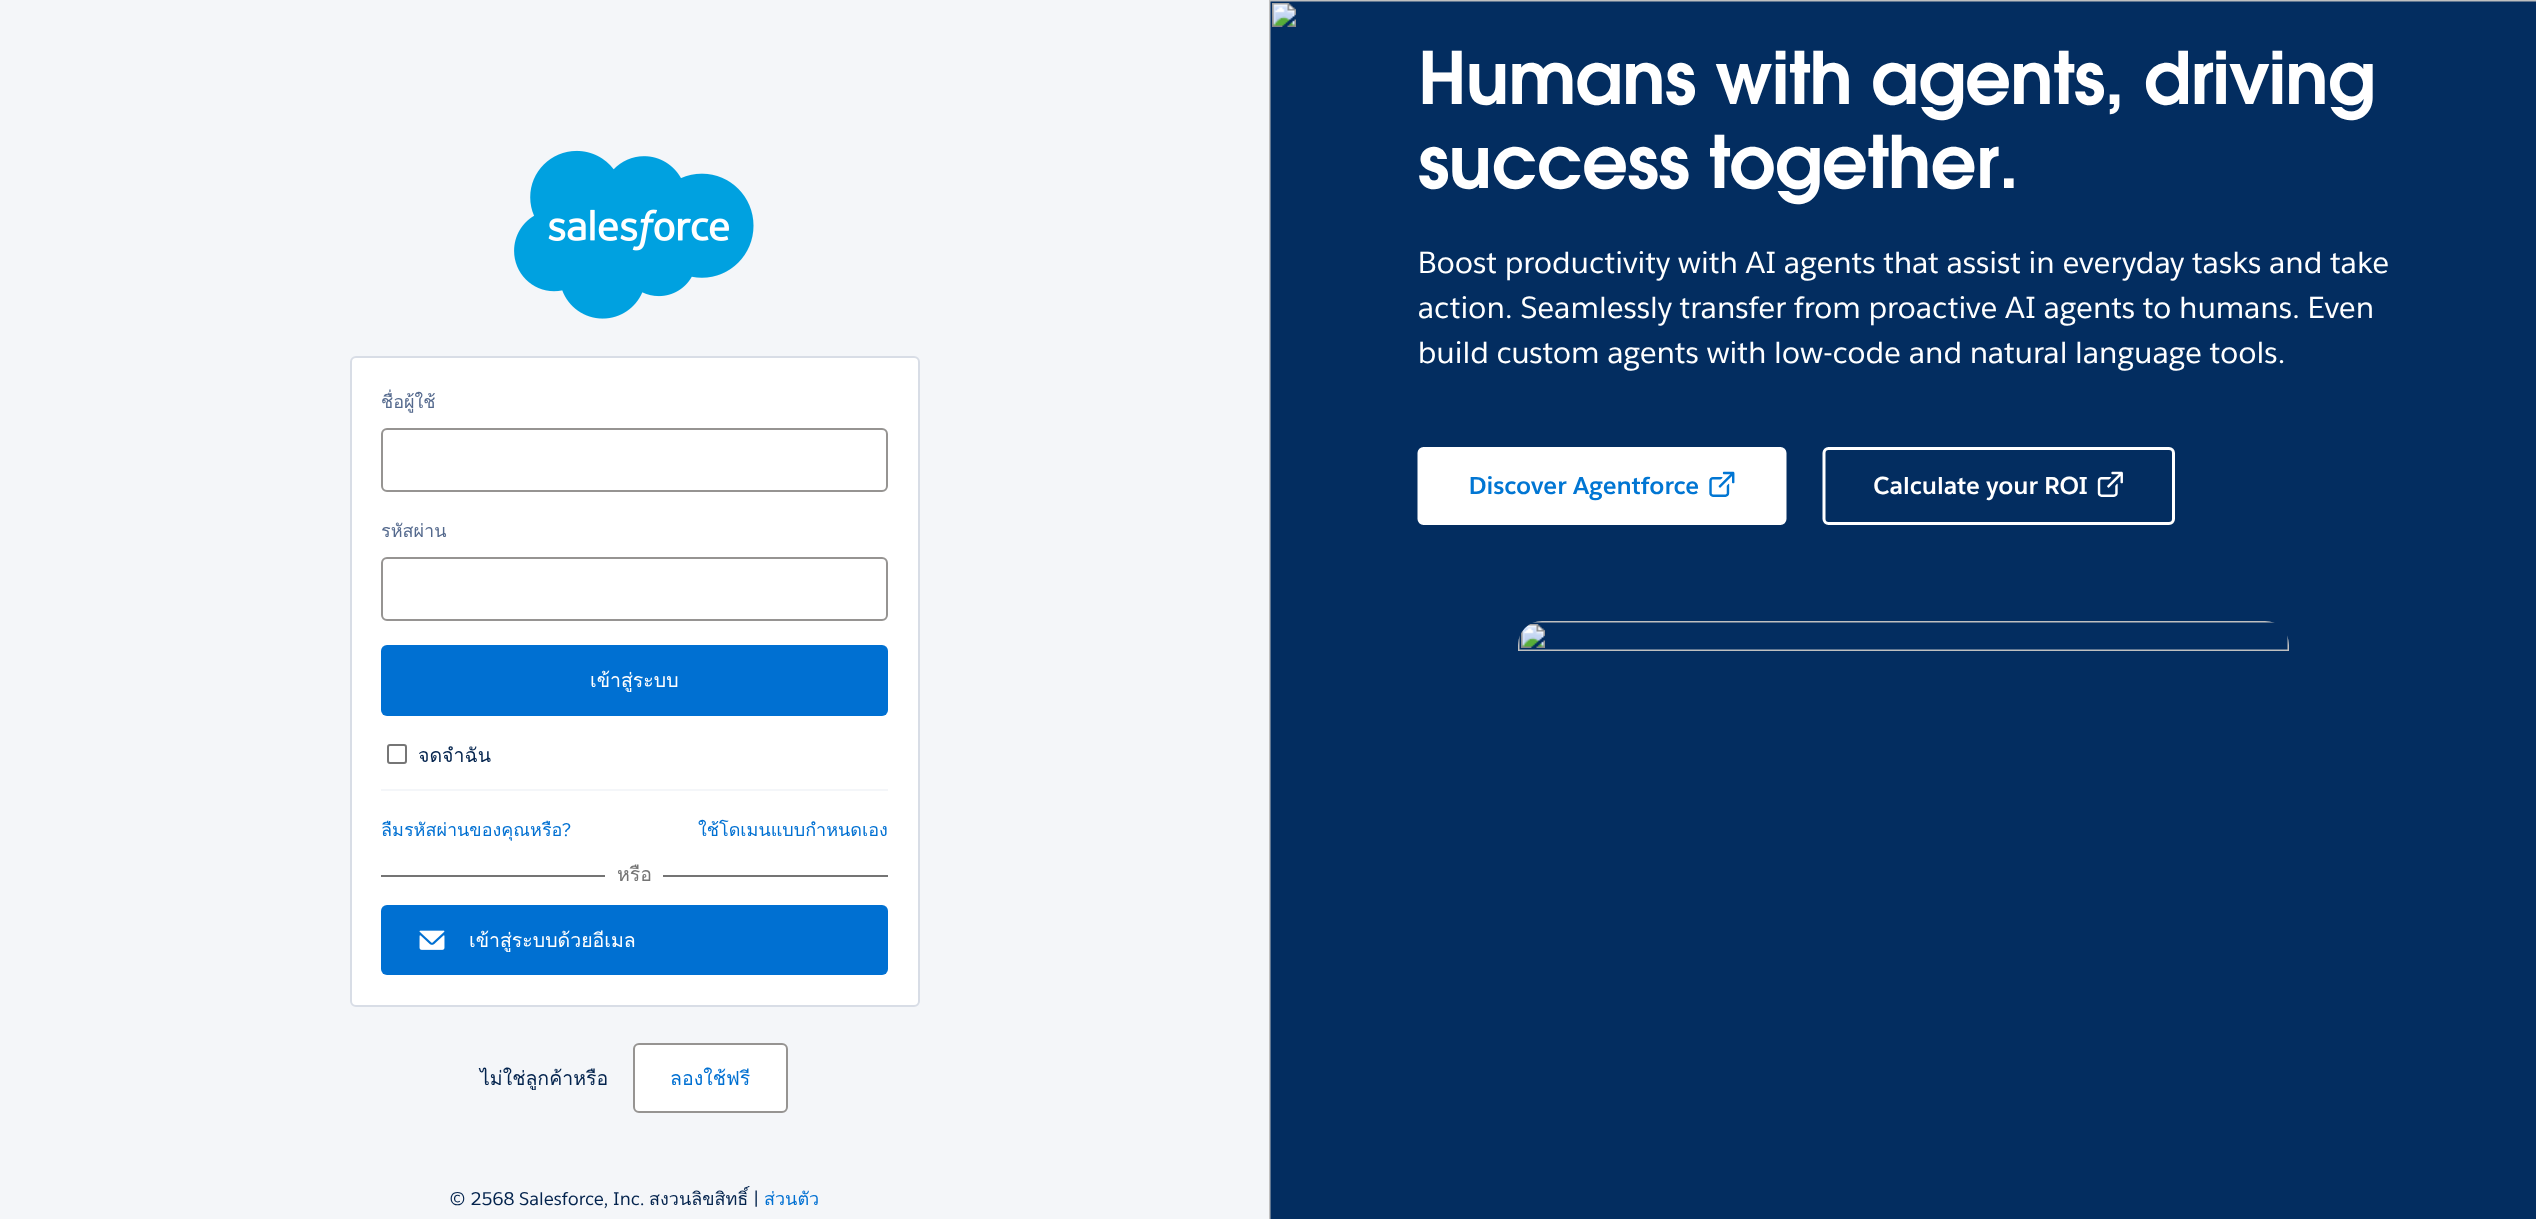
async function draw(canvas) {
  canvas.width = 2536;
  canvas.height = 1219;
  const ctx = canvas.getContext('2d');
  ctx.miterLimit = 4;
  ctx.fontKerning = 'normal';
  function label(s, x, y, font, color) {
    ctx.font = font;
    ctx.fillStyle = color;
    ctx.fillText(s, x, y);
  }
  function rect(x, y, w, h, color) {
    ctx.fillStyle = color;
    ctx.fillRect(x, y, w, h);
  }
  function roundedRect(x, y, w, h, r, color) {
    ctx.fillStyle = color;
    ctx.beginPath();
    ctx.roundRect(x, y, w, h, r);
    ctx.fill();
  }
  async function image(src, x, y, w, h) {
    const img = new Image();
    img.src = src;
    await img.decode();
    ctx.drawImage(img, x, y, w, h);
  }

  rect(0, 0, 2536, 1219, '#f4f6f9');
  await image('assets/img1.png', 514, 150, 240, 169);
  ctx.fillStyle = '#fff';
  ctx.beginPath();
  ctx.roundRect(351, 357, 568, 649, 5);
  ctx.fill();
  ctx.strokeStyle = '#d8dde6';
  ctx.lineWidth = 2;
  ctx.stroke();
  label('ชื่อผู้ใช้', 381, 408, '18px Loma', '#54698d');
  ctx.beginPath();
  ctx.roundRect(382, 429, 505, 62, 5);
  ctx.strokeStyle = '#969492';
  ctx.stroke();
  label('รหัสผ่าน', 381, 537, '18px Loma', '#54698d');
  ctx.beginPath();
  ctx.roundRect(382, 558, 505, 62, 5);
  ctx.stroke();
  roundedRect(381, 645, 507, 71, 6, '#0070d2');
  label('เข้าสู่ระบบ', 590, 687, '19.5px Loma', '#fff');
  ctx.beginPath();
  ctx.roundRect(388, 745, 18, 18, 2);
  ctx.strokeStyle = '#767676';
  ctx.stroke();
  label('จดจำฉัน', 418, 762, '19.5px Loma', '#03234d');
  rect(381, 789, 507, 2, '#f4f6f9');
  label('ลืมรหัสผ่านของคุณหรือ', 381, 836, '18px Loma', '#0070d2');
  label('?', 562, 836, '18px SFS', '#0070d2');
  label('ใช้โดเมนแบบกำหนดเอง', 698, 836, '18px Loma', '#0070d2');
  rect(381, 875, 224, 2, '#747474');
  label('หรือ', 617, 881, '19.5px Loma', '#747474');
  rect(663, 875, 225, 2, '#747474');
  roundedRect(381, 905, 507, 70, 6, '#0070d2');
  await image('assets/img2.png', 419, 930, 26, 20);
  label('เข้าสู่ระบบด้วยอีเมล', 469, 947, '19.5px Loma', '#fff');
  label('ไม่ใช่ลูกค้าหรือ', 480, 1085, '19.5px Loma', '#03234d');
  ctx.fillStyle = '#fff';
  ctx.beginPath();
  ctx.roundRect(634, 1044, 153, 68, 5);
  ctx.fill();
  ctx.strokeStyle = '#969492';
  ctx.stroke();
  label('ลองใช้ฟรี', 670, 1085, '19.5px Loma', '#0070d2');
  label('© 2568 Salesforce, Inc.', 449, 1205, '18px SFS', '#03234d');
  label('สงวนลิขสิทธิ์', 649, 1205, '18px Loma', '#03234d');
  label('|', 753, 1205, '18px SFS', '#03234d');
  label('ส่วนตัว', 764, 1205, '18px Loma', '#0070d2');
  await image('assets/img3.png', 1269, 0, 1267, 1219);
}

draw(document.querySelector('canvas'));
